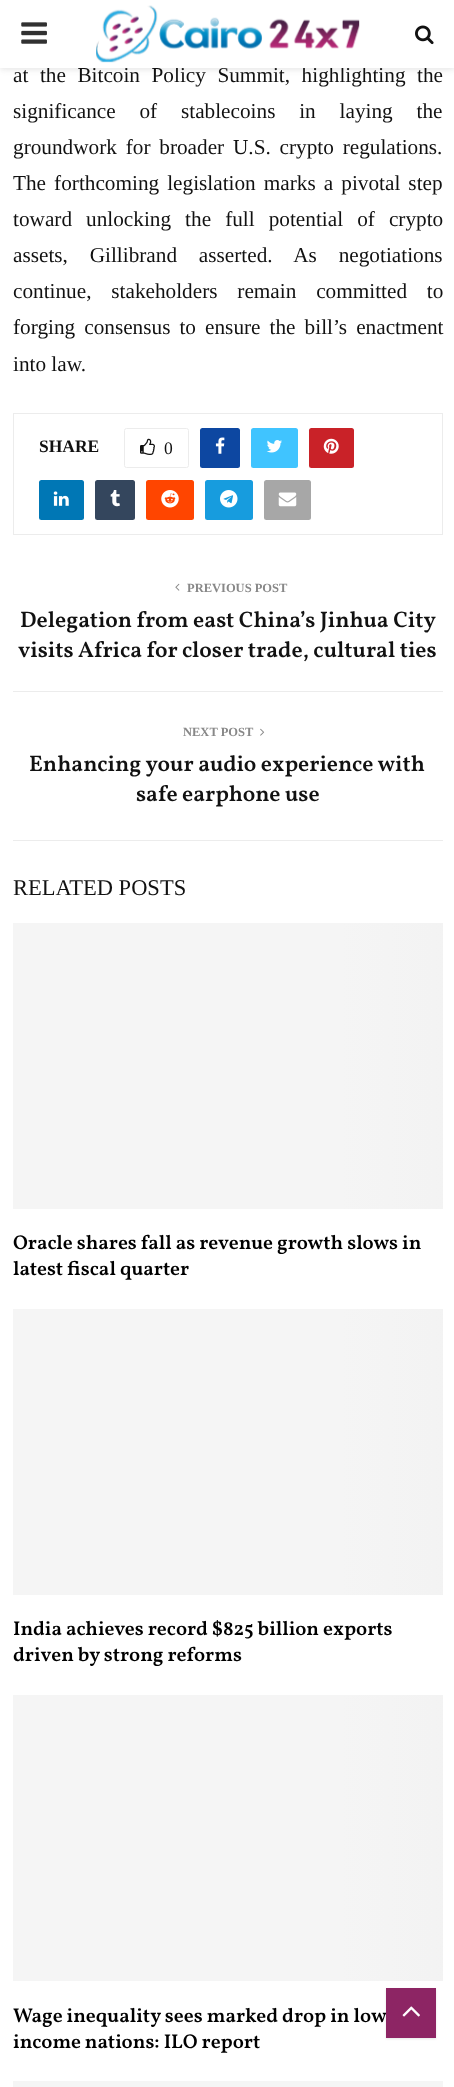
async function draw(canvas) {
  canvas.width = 454;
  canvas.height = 2087;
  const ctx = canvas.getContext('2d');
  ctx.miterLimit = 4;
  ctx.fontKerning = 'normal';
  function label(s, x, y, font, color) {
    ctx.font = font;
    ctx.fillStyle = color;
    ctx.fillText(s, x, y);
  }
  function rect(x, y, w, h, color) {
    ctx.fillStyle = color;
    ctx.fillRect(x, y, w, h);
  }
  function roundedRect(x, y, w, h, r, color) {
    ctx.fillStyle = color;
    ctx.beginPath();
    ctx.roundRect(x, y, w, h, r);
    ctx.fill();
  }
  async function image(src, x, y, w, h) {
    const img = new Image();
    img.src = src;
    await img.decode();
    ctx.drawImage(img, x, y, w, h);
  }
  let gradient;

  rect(0, 0, 454, 2087, '#fff');
  ctx.fillStyle = '#bebebe75';
  ctx.filter = 'blur(3px)';
  ctx.beginPath();
  ctx.rect(0, 1, 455, 68);
  ctx.fill();
  ctx.filter = 'none';
  ctx.wordSpacing = '6.25px';
  label('at the Bitcoin Policy Summit, highlighting the', 13, 82, '21.25px Liberation Serif', '#111');
  rect(0, 0, 454, 68, '#fff');
  await image('assets/img1.png', 21, 22, 26, 22);
  await image('assets/img2.png', 96, 5, 264, 58);
  await image('assets/img3.png', 415, 25, 19, 20);
  ctx.wordSpacing = '18.5px';
  label('significance of stablecoins in laying the', 13, 118, '21.25px Liberation Serif', '#111');
  ctx.wordSpacing = '3.5px';
  label('groundwork for broader U.S. crypto regulations.', 13, 154, '21.25px Liberation Serif', '#111');
  ctx.wordSpacing = '2.75px';
  label('The forthcoming legislation marks a pivotal step', 13, 190, '21.25px Liberation Serif', '#111');
  ctx.wordSpacing = '8.75px';
  label('toward unlocking the full potential of crypto', 13, 226, '21.25px Liberation Serif', '#111');
  ctx.wordSpacing = '16.5px';
  label('assets, Gillibrand asserted. As negotiations', 13, 262, '21.25px Liberation Serif', '#111');
  ctx.wordSpacing = '14.5px';
  label('continue, stakeholders remain committed to', 13, 298, '21.25px Liberation Serif', '#111');
  ctx.wordSpacing = '3.75px';
  label('forging consensus to ensure the bill’s enactment', 13, 334, '21.25px Liberation Serif', '#111');
  ctx.wordSpacing = '0px';
  label('into law.', 13, 371, '21.25px Liberation Serif', '#111');
  ctx.strokeStyle = '#ececec';
  ctx.strokeRect(13.5, 413.5, 429, 121);
  label('SHARE', 39, 452, 'bold 17.5px Liberation Serif', '#111');
  ctx.beginPath();
  ctx.roundRect(124.5, 428.5, 64, 39, 2);
  ctx.stroke();
  await image('assets/img4.png', 140, 438, 15, 17);
  label('0', 164, 454, '17.5px Liberation Serif', '#111');
  roundedRect(200, 428, 40, 40, 2.5, '#0d47a1');
  await image('assets/img5.png', 215, 437, 10, 17);
  roundedRect(251, 428, 47, 40, 2.5, '#40c4ff');
  await image('assets/img6.png', 266, 440, 16, 13);
  roundedRect(309, 428, 45, 40, 2.5, '#c92228');
  await image('assets/img7.png', 323, 438, 16, 16);
  roundedRect(39, 480, 45, 40, 2.5, '#0077b5');
  await image('assets/img8.png', 53, 491, 16, 15);
  roundedRect(95, 480, 40, 40, 2.5, '#34465d');
  await image('assets/img9.png', 110, 490, 10, 17);
  roundedRect(146, 480, 48, 40, 2.5, '#ff4500');
  await image('assets/img10.png', 161, 490, 18, 18);
  roundedRect(205, 480, 48, 40, 2.5, '#179cde');
  await image('assets/img11.png', 220, 490, 18, 18);
  roundedRect(264, 480, 47, 40, 2.5, '#a7a7a7');
  await image('assets/img12.png', 278, 492, 19, 15);
  rect(13, 840, 430, 1, '#ececec');
  await image('assets/img13.png', 175, 583, 5, 8);
  label('PREVIOUS POST', 187, 592, 'bold 12.5px Liberation Serif', '#888');
  label('Delegation from east China’s Jinhua City', 20, 627, '600 22.5px Vollkorn', '#111');
  label('visits Africa for closer trade, cultural ties', 18, 657, '600 22.5px Vollkorn', '#111');
  rect(13, 691, 430, 1, '#ececec');
  label('NEXT POST', 183, 736, 'bold 12.5px Liberation Serif', '#888');
  await image('assets/img14.png', 260, 728, 5, 8);
  label('Enhancing your audio experience with', 29, 771, '600 22.5px Vollkorn', '#111');
  label('safe earphone use', 136, 801, '600 22.5px Vollkorn', '#111');
  label('RELATED POSTS', 13, 895, '22.5px Liberation Serif', '#111');
  gradient = ctx.createLinearGradient(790, 1066, -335, 1066);
  gradient.addColorStop(0, '#f5f5f5');
  gradient.addColorStop(0.15, '#efefef');
  gradient.addColorStop(0.4, '#f5f5f5');
  gradient.addColorStop(1, '#f5f5f5');
  ctx.fillStyle = gradient;
  ctx.fillRect(13, 923, 430, 286);
  label('Oracle shares fall as revenue growth slows in', 13, 1249, '600 20px Vollkorn', '#000');
  label('latest fiscal quarter', 13, 1275, '600 20px Vollkorn', '#000');
  gradient = ctx.createLinearGradient(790, 1452, -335, 1452);
  gradient.addColorStop(0, '#f5f5f5');
  gradient.addColorStop(0.15, '#efefef');
  gradient.addColorStop(0.4, '#f5f5f5');
  gradient.addColorStop(1, '#f5f5f5');
  ctx.fillStyle = gradient;
  ctx.fillRect(13, 1309, 430, 286);
  label('India achieves record $825 billion exports', 13, 1635, '600 20px Vollkorn', '#000');
  label('driven by strong reforms', 13, 1661, '600 20px Vollkorn', '#000');
  gradient = ctx.createLinearGradient(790, 1838, -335, 1838);
  gradient.addColorStop(0, '#f5f5f5');
  gradient.addColorStop(0.15, '#efefef');
  gradient.addColorStop(0.4, '#f5f5f5');
  gradient.addColorStop(1, '#f5f5f5');
  ctx.fillStyle = gradient;
  ctx.fillRect(13, 1695, 430, 286);
  label('Wage inequality sees marked drop in low', 13, 2022, '600 20px Vollkorn', '#000');
  label('income nations: ILO report', 13, 2048, '600 20px Vollkorn', '#000');
  rect(13, 2081, 430, 6, '#f5f5f5');
  ctx.fillStyle = '#0000001a';
  ctx.filter = 'blur(1px)';
  ctx.beginPath();
  ctx.rect(386, 1989, 50, 50);
  ctx.fill();
  ctx.filter = 'none';
  rect(386, 1988, 50, 50, '#8d2564');
  await image('assets/img15.png', 402, 2006, 18, 11);
}

draw(document.querySelector('canvas'));
